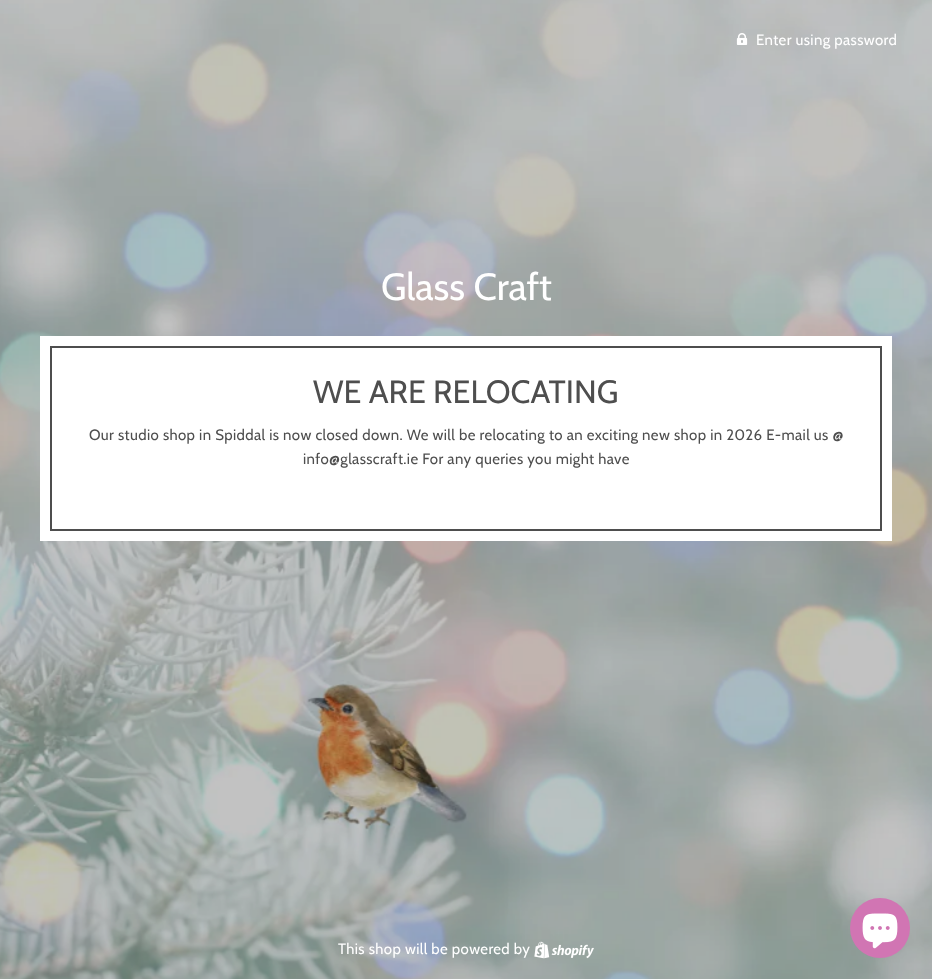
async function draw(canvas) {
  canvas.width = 932;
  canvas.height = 979;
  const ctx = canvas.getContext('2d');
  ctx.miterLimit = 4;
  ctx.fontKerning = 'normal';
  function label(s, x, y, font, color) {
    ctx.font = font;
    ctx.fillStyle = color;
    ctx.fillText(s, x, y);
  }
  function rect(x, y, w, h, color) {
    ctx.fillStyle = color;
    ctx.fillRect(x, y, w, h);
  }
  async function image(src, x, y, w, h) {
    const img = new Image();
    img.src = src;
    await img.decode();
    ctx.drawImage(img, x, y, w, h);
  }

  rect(0, 0, 932, 979, '#fff');
  await image('assets/img1.png', 0, 0, 932, 979);
  await image('assets/img2.png', 736, 33, 12, 12);
  ctx.letterSpacing = '0.38px';
  label('Enter using password', 756, 45, '15px Cabin', '#fff');
  ctx.letterSpacing = '0px';
  label('Glass Craft', 381, 300, '38px Cabin', '#fff');
  rect(40, 336, 852, 205, '#fff');
  ctx.strokeStyle = '#4e4e4e';
  ctx.lineWidth = 2;
  ctx.strokeRect(51, 347, 830, 183);
  label('WE ARE RELOCATING', 313, 403, '32.25px Cabin', '#4e4e4e');
  ctx.letterSpacing = '0.38px';
  label('Our studio shop in Spiddal is now closed down. We will be relocating to an exciting new shop in 2026 E-mail us @', 89, 440, '15px Cabin', '#4e4e4e');
  label('info@glasscraft.ie For any queries you might have', 303, 464, '15px Cabin', '#4e4e4e');
  label('This shop will be powered by', 338, 954, '15px Cabin', '#fff');
  await image('assets/img3.png', 534, 941, 60, 18);
  ctx.fillStyle = '#d175b3';
  ctx.beginPath();
  ctx.arc(880, 928, 30, 0, 2 * Math.PI);
  ctx.fill();
  await image('assets/img4.png', 862, 913, 36, 36);
}

draw(document.querySelector('canvas'));
